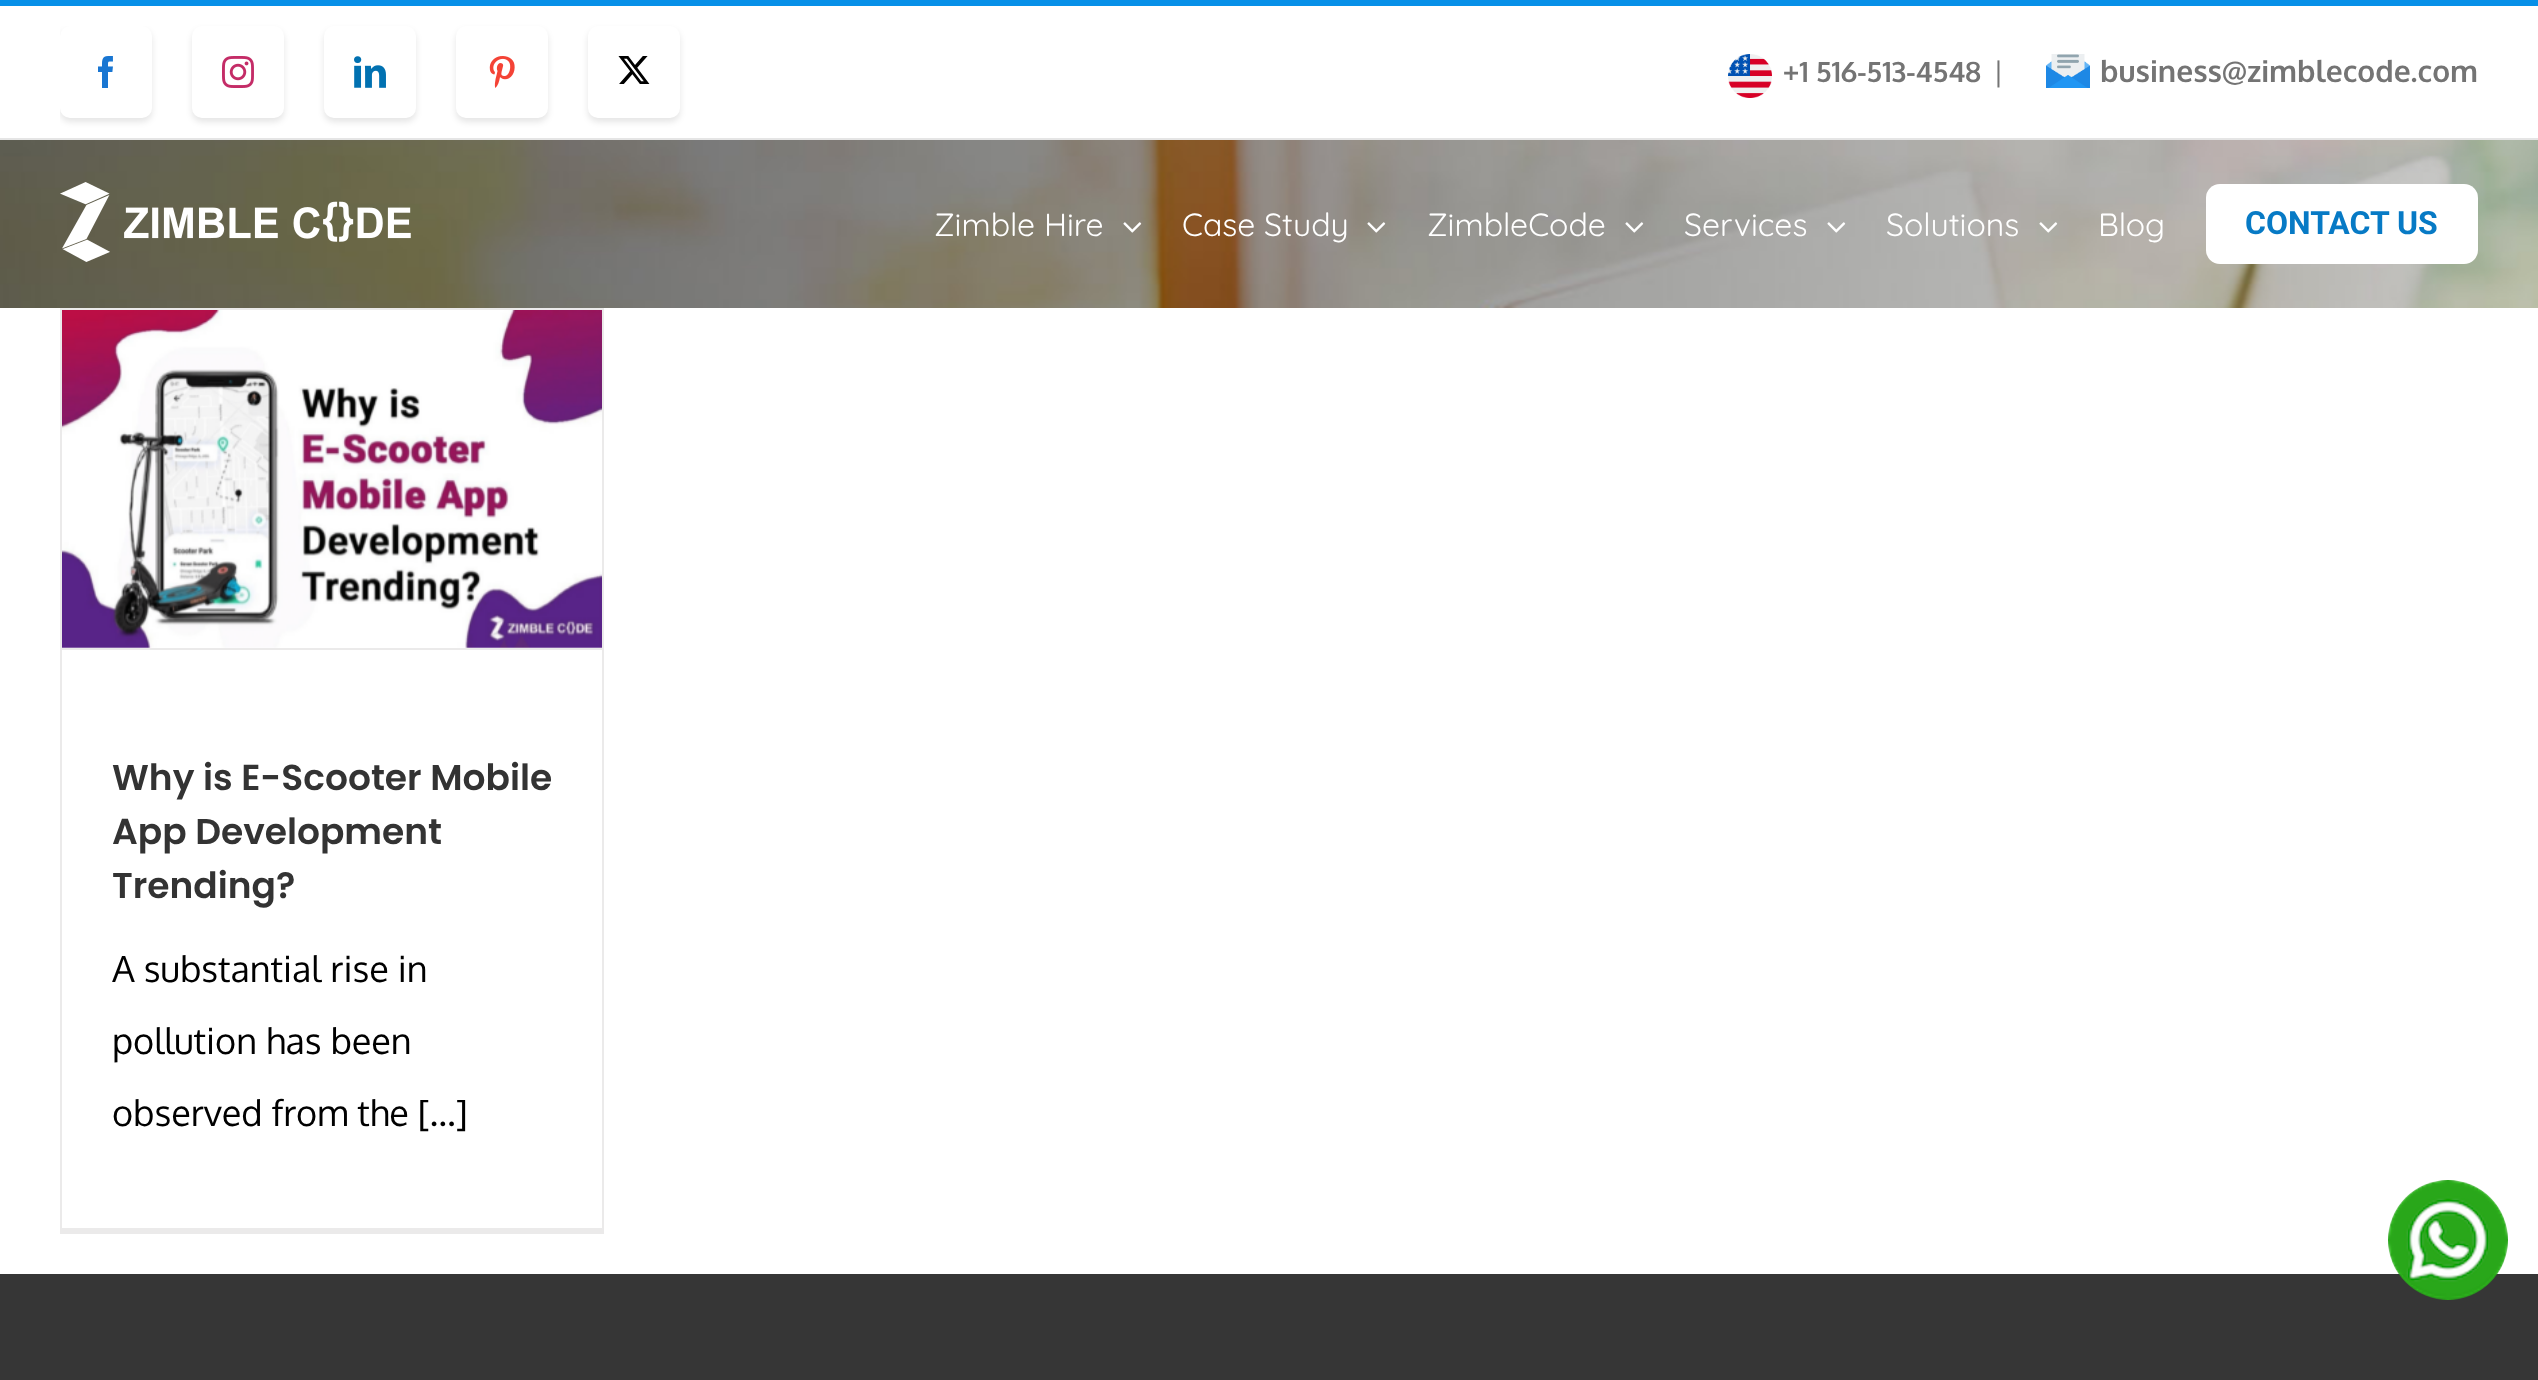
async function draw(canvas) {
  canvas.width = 2538;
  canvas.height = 1380;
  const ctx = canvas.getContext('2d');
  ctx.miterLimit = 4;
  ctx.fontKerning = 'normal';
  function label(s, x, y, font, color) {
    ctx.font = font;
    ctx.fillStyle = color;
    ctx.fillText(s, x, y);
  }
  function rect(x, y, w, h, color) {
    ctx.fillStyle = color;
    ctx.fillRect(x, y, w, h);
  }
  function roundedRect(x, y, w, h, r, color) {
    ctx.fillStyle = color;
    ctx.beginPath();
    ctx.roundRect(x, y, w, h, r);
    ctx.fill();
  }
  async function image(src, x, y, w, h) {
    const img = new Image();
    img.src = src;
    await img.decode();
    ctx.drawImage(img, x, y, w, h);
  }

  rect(0, 0, 2538, 1380, '#fff');
  rect(0, 0, 2538, 6, '#0790e8');
  rect(0, 138, 2538, 2, '#e5e5e5');
  ctx.save();
  ctx.beginPath();
  ctx.rect(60, 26, 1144, 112);
  ctx.clip();
  ctx.fillStyle = '#0000001a';
  ctx.filter = 'blur(3px)';
  ctx.beginPath();
  ctx.roundRect(60, 30, 92, 92, 10);
  ctx.fill();
  ctx.filter = 'none';
  ctx.restore();
  roundedRect(60, 26, 92, 92, 10, '#fff');
  await image('assets/img1.png', 98, 56, 15, 32);
  ctx.fillStyle = '#0000001a';
  ctx.filter = 'blur(3px)';
  ctx.beginPath();
  ctx.roundRect(192, 30, 92, 92, 10);
  ctx.fill();
  ctx.filter = 'none';
  roundedRect(192, 26, 92, 92, 10, '#fff');
  await image('assets/img2.png', 222, 56, 32, 32);
  ctx.fillStyle = '#0000001a';
  ctx.filter = 'blur(3px)';
  ctx.beginPath();
  ctx.roundRect(324, 30, 92, 92, 10);
  ctx.fill();
  ctx.filter = 'none';
  roundedRect(324, 26, 92, 92, 10, '#fff');
  await image('assets/img3.png', 354, 56, 32, 32);
  ctx.fillStyle = '#0000001a';
  ctx.filter = 'blur(3px)';
  ctx.beginPath();
  ctx.roundRect(456, 30, 92, 92, 10);
  ctx.fill();
  ctx.filter = 'none';
  roundedRect(456, 26, 92, 92, 10, '#fff');
  await image('assets/img4.png', 489, 56, 26, 32);
  ctx.fillStyle = '#0000001a';
  ctx.filter = 'blur(3px)';
  ctx.beginPath();
  ctx.roundRect(588, 30, 92, 92, 10);
  ctx.fill();
  ctx.filter = 'none';
  roundedRect(588, 26, 92, 92, 10, '#fff');
  await image('assets/img5.png', 618, 56, 32, 28);
  await image('assets/img6.png', 1728, 54, 44, 44);
  label('+1 516-513-4548', 1783, 82, 'bold 28px Oxygen', '#747474');
  label('|', 1993, 82, '28px Oxygen', '#747474');
  await image('assets/img7.png', 2046, 54, 44, 34);
  label('business@zimblecode.com', 2100, 82, 'bold 30px Oxygen', '#747474');
  await image('assets/img8.png', 0, 140, 2538, 168);
  await image('assets/img9.png', 60, 182, 351, 80);
  label('Zimble Hire', 934, 236, '32px Quicksand', '#fff');
  await image('assets/img10.png', 1123, 222, 19, 11);
  label('Case Study', 1182, 236, '32px Quicksand', '#fff');
  await image('assets/img11.png', 1367, 222, 19, 11);
  label('ZimbleCode', 1427, 236, '32px Quicksand', '#fff');
  await image('assets/img12.png', 1625, 222, 19, 11);
  label('Services', 1684, 236, '32px Quicksand', '#fff');
  await image('assets/img13.png', 1827, 222, 19, 11);
  label('Solutions', 1886, 236, '32px Quicksand', '#fff');
  await image('assets/img14.png', 2039, 222, 19, 11);
  label('Blog', 2098, 236, '32px Quicksand', '#fff');
  roundedRect(2206, 184, 272, 80, 14, '#fff');
  label('CONTACT US', 2245, 234, 'bold 32px Roboto', '#077ac5');
  rect(60, 308, 544, 2, '#ebeaea');
  rect(602, 308, 2, 926, '#ebeaea');
  rect(60, 1228, 544, 6, '#ebeaea');
  rect(60, 308, 2, 926, '#ebeaea');
  rect(62, 648, 540, 2, '#ebeaea');
  await image('assets/img15.png', 62, 310, 540, 338);
  label('Why is E-Scooter Mobile', 112, 790, '600 36px Poppins', '#333');
  label('App Development', 112, 844, '600 36px Poppins', '#333');
  label('Trending?', 112, 898, '600 36px Poppins', '#333');
  label('A substantial rise in', 112, 982, '36px Oxygen', '#000');
  label('pollution has been', 112, 1054, '36px Oxygen', '#000');
  label('observed from the [...]', 112, 1126, '36px Oxygen', '#000');
  rect(0, 1274, 2538, 106, '#363636');
  await image('assets/img16.png', 2388, 1180, 120, 120);
}

draw(document.querySelector('canvas'));
